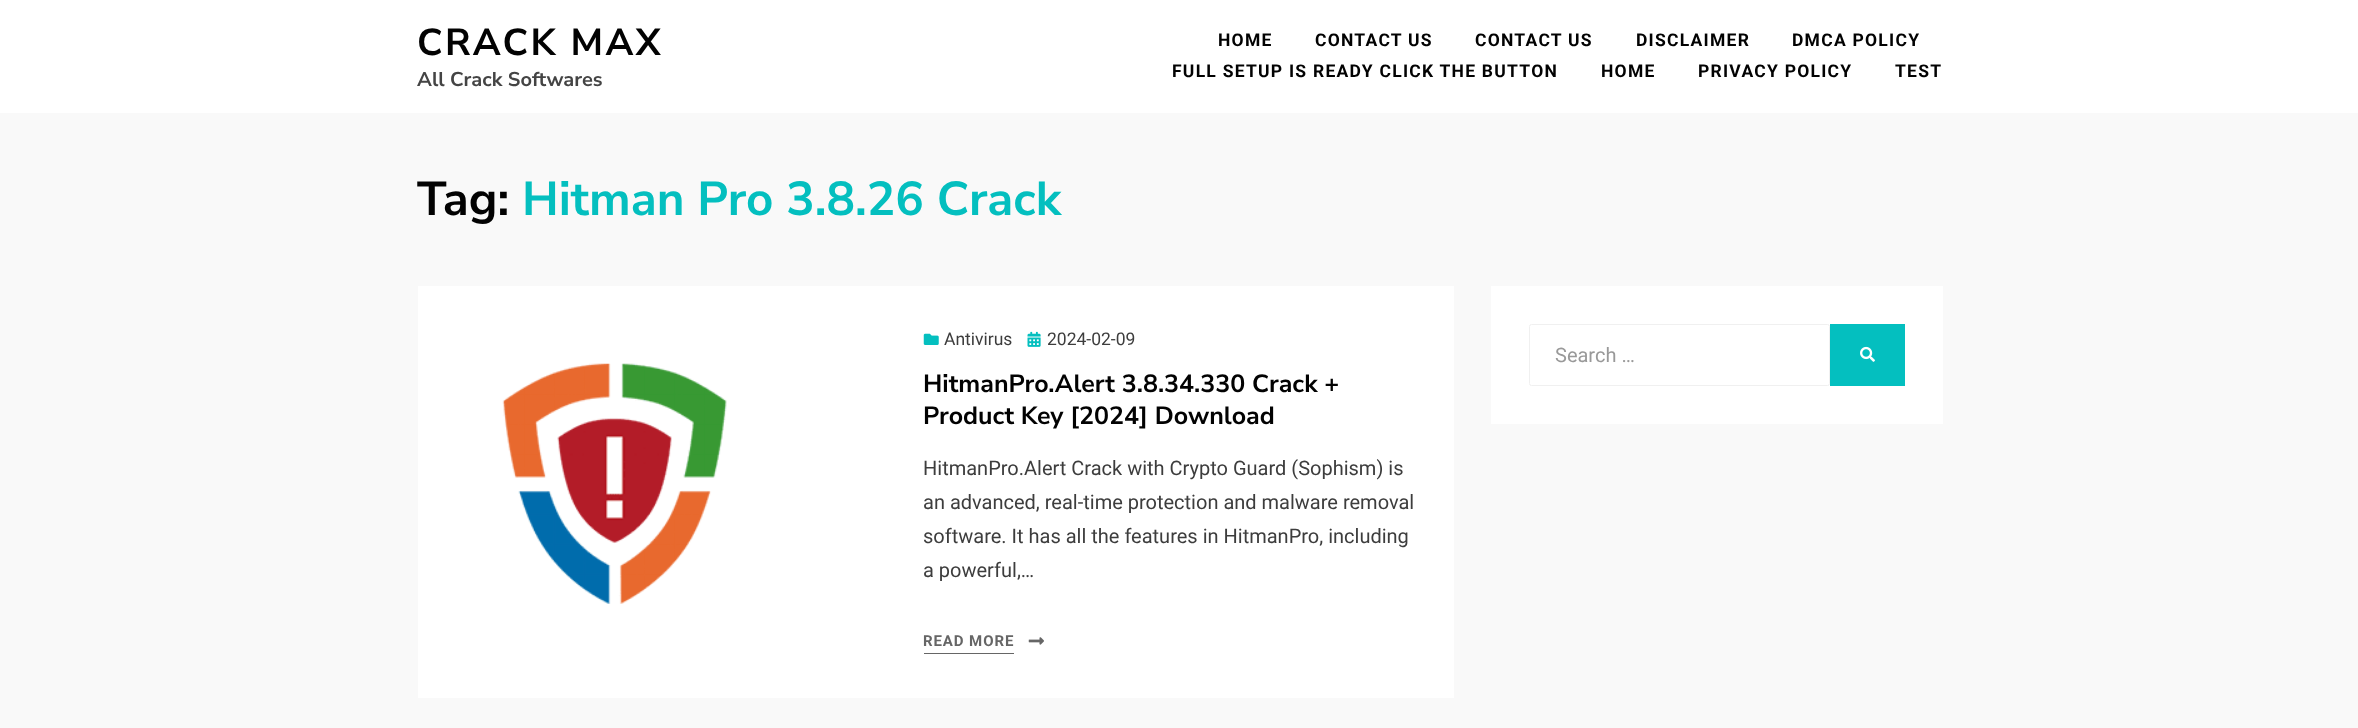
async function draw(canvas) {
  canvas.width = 2358;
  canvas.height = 728;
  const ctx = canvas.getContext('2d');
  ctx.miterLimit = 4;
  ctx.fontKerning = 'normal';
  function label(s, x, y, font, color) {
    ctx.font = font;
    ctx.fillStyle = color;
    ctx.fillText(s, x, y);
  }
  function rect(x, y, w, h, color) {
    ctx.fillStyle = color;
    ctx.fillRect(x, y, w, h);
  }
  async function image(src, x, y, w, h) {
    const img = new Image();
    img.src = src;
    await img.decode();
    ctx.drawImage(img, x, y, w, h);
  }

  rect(0, 0, 2358, 728, '#f9f9f9');
  rect(0, 0, 2358, 113, '#fff');
  ctx.letterSpacing = '2.5px';
  label('CRACK MAX', 417, 55, 'bold 37.5px Nunito Sans', '#020202');
  ctx.letterSpacing = '0px';
  label('All Crack Softwares', 417, 86, 'bold 20px Nunito Sans', '#444');
  ctx.letterSpacing = '1.25px';
  label('HOME', 1218, 46, 'bold 17.5px Roboto', '#020202');
  label('CONTACT US', 1315, 46, 'bold 17.5px Roboto', '#020202');
  label('CONTACT US', 1475, 46, 'bold 17.5px Roboto', '#020202');
  label('DISCLAIMER', 1636, 46, 'bold 17.5px Roboto', '#020202');
  label('DMCA POLICY', 1792, 46, 'bold 17.5px Roboto', '#020202');
  label('FULL SETUP IS READY CLICK THE BUTTON', 1172, 77, 'bold 17.5px Roboto', '#020202');
  label('HOME', 1601, 77, 'bold 17.5px Roboto', '#020202');
  label('PRIVACY POLICY', 1698, 77, 'bold 17.5px Roboto', '#020202');
  label('TEST', 1895, 77, 'bold 17.5px Roboto', '#020202');
  ctx.letterSpacing = '0px';
  label('Tag:', 417, 215, 'bold 47.5px Nunito Sans', '#020202');
  label('Hitman Pro 3.8.26 Crack', 522, 215, 'bold 47.5px Nunito Sans', '#04bfbf');
  rect(418, 286, 1036, 412, '#fff');
  await image('assets/img1.png', 502, 363, 225, 241);
  await image('assets/img2.png', 923, 333, 16, 12);
  label('Antivirus', 944, 345, '17.5px Roboto', '#3d3d3d');
  await image('assets/img3.png', 1027, 331, 14, 16);
  label('2024-02-09', 1047, 345, '17.5px Roboto', '#3d3d3d');
  label('HitmanPro.Alert 3.8.34.330 Crack +', 923, 392, 'bold 25px Nunito Sans', '#020202');
  label('Product Key [2024] Download', 923, 424, 'bold 25px Nunito Sans', '#020202');
  label('HitmanPro.Alert Crack with Crypto Guard (Sophism) is', 923, 475, '20px Roboto', '#3d3d3d');
  label('an advanced, real-time protection and malware removal', 923, 509, '20px Roboto', '#3d3d3d');
  label('software. It has all the features in HitmanPro, including', 923, 543, '20px Roboto', '#3d3d3d');
  label('a powerful,…', 923, 577, '20px Roboto', '#3d3d3d');
  ctx.letterSpacing = '0.9px';
  label('READ MORE', 923, 646, 'bold 15px Roboto', '#666');
  await image('assets/img4.png', 1028, 637, 16, 8);
  rect(924, 653, 90, 1, '#666');
  rect(1491, 286, 452, 138, '#fff');
  ctx.beginPath();
  ctx.roundRect(1529.5, 324.5, 300, 61, 2);
  ctx.strokeStyle = '#f0f0f0';
  ctx.stroke();
  ctx.letterSpacing = '0px';
  label('Search …', 1555, 362, '20px Roboto', '#999');
  rect(1830, 324, 75, 62, '#04bfbf');
  await image('assets/img5.png', 1860, 346, 15, 16);
}

draw(document.querySelector('canvas'));
